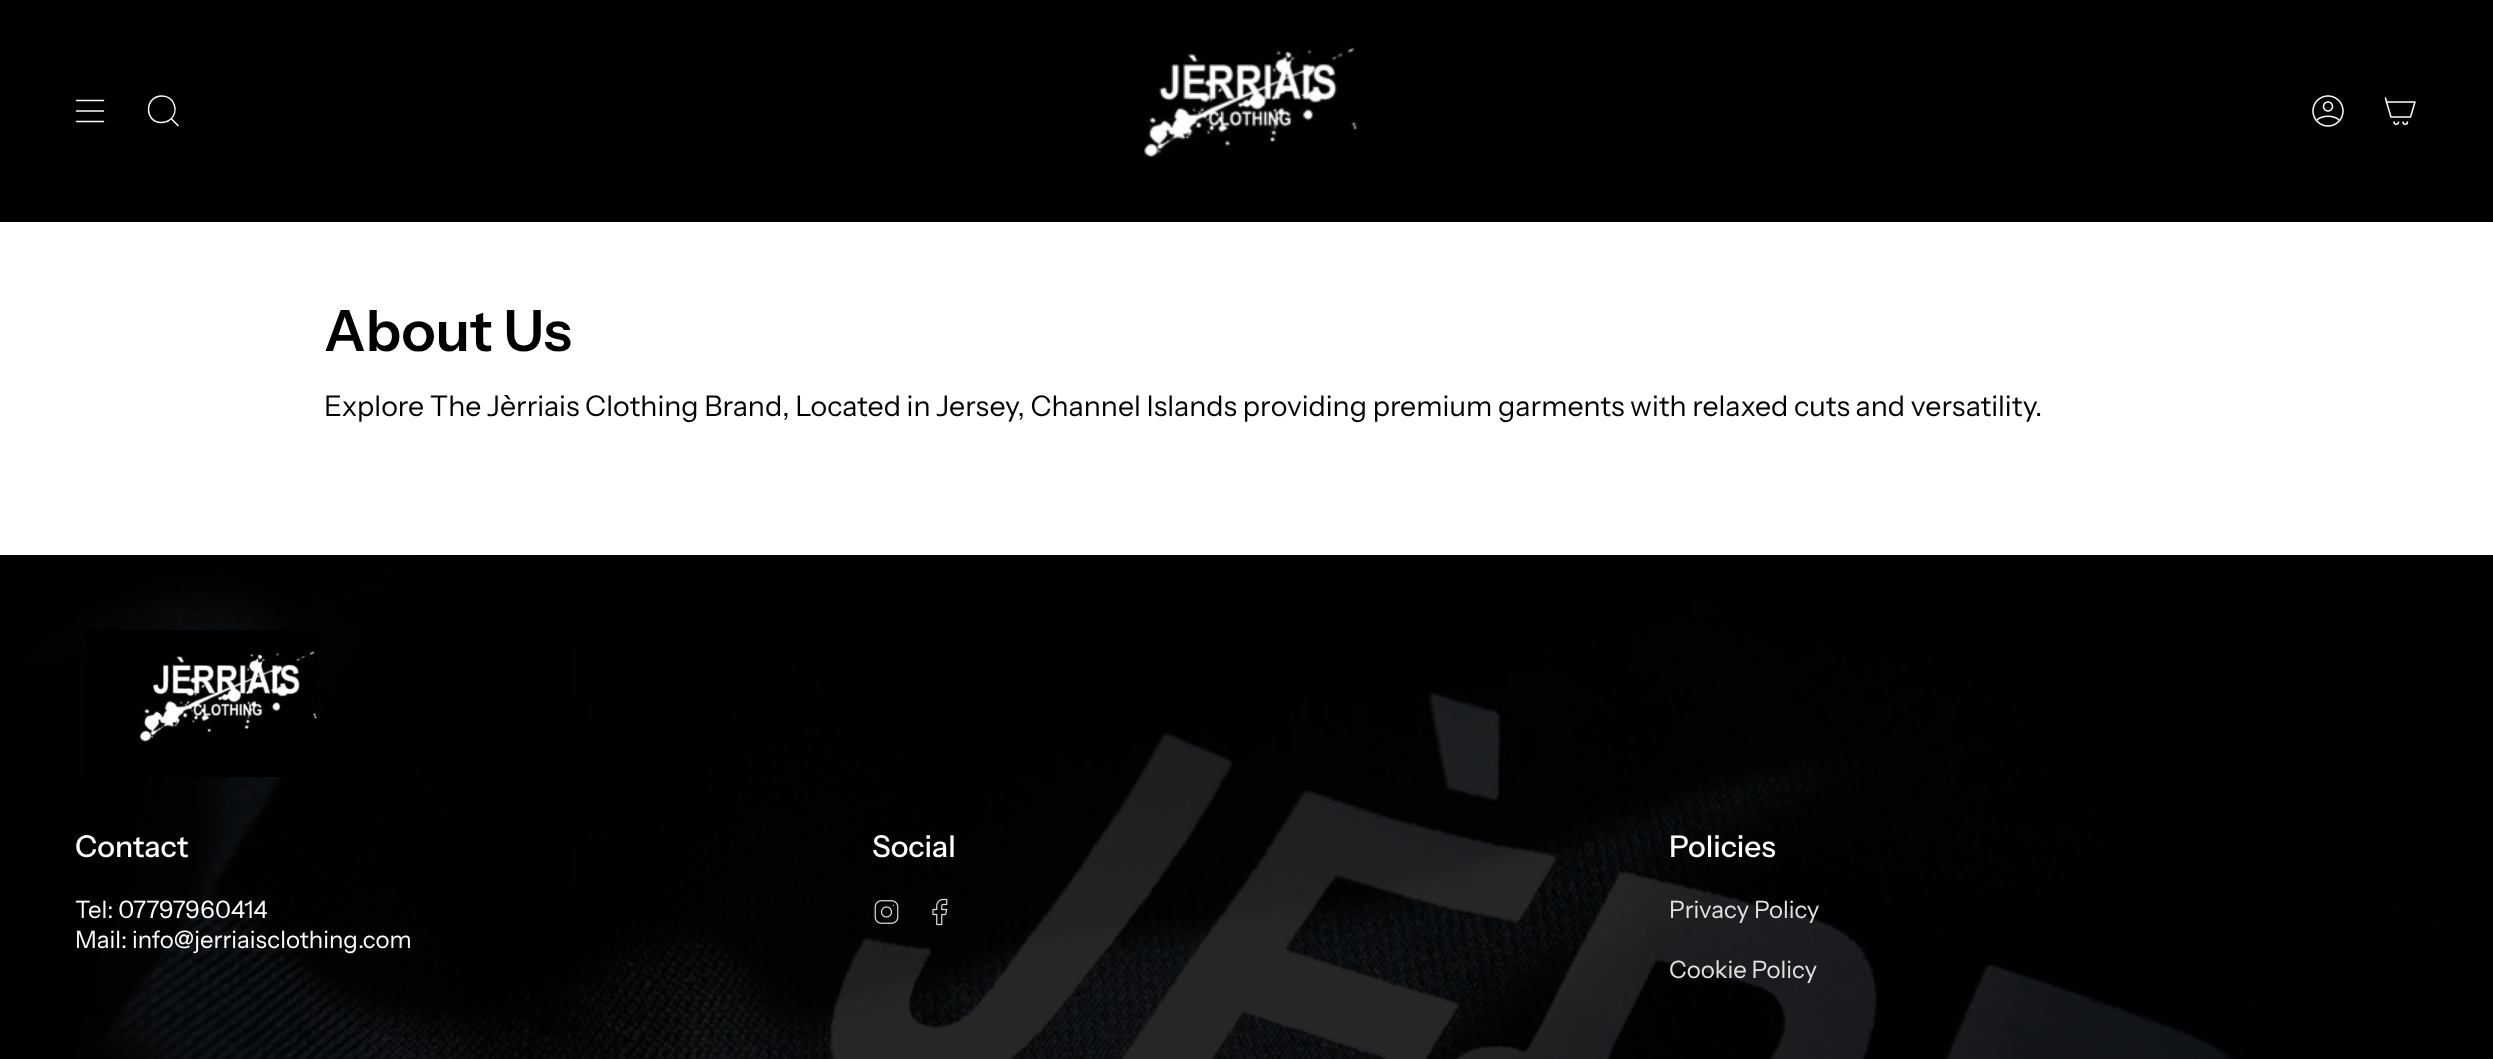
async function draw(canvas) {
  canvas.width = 2493;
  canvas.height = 1059;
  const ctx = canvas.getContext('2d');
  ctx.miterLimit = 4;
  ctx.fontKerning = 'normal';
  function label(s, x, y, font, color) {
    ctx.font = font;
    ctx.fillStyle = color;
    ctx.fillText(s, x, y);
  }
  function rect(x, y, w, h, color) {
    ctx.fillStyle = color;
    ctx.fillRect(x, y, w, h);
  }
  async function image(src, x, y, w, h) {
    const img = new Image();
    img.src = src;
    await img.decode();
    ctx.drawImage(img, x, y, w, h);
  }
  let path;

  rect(0, 0, 2493, 1059, '#fff');
  rect(0, 0, 2493, 222, '#000');
  path = new Path2D('M76.5 100.5H103.5M76.5 111H103.5M76.5 121.5H103.5');
  ctx.strokeStyle = '#fff';
  ctx.lineWidth = 1.5;
  ctx.lineCap = 'round';
  ctx.lineJoin = 'round';
  ctx.stroke(path);
  path = new Path2D('M162 96C174.5 96 180 112.5 169.5 120C167 122 164 122.5 161 122.5C144 122 144.5 96 162 96ZM171 118.5L178.5 126');
  ctx.lineCap = 'butt';
  ctx.lineJoin = 'miter';
  ctx.stroke(path);
  await image('assets/img1.png', 1144, 41, 214, 117);
  await image('assets/img2.png', 2312, 95, 32, 32);
  path = new Path2D('M2386.5 102H2415L2410.5 117H2391ZM2386.5 102L2385.5 98M2398.5 122C2398.5 125 2394 125 2394 122M2407.5 122C2407.5 125 2403 125 2403 122');
  ctx.lineCap = 'round';
  ctx.lineJoin = 'round';
  ctx.stroke(path);
  label('About Us', 324, 351, '600 57px Instrument Sans', '#000');
  label('Explore The Jèrriais Clothing Brand, Located in Jersey, Channel Islands providing premium garments with relaxed cuts and versatility.', 324, 416, '28.5px Instrument Sans', '#000');
  await image('assets/img3.png', 0, 555, 2493, 504);
  await image('assets/img4.png', 86, 630, 232, 147);
  label('Contact', 75, 857, '500 30px Instrument Sans', '#fff');
  label('Tel: 07797960414', 75, 918, '24px Instrument Sans', '#fff');
  label('Mail: info@jerriaisclothing.com', 75, 948, '24px Instrument Sans', '#fff');
  label('Social', 872, 857, '500 30px Instrument Sans', '#fff');
  await image('assets/img5.png', 874, 900, 25, 24);
  await image('assets/img6.png', 932, 898, 16, 28);
  label('Policies', 1669, 857, '500 30px Instrument Sans', '#fff');
  label('Privacy Policy', 1669, 918, '24px Instrument Sans', '#e1e1e1');
  label('Cookie Policy', 1669, 978, '24px Instrument Sans', '#e1e1e1');
}

draw(document.querySelector('canvas'));
